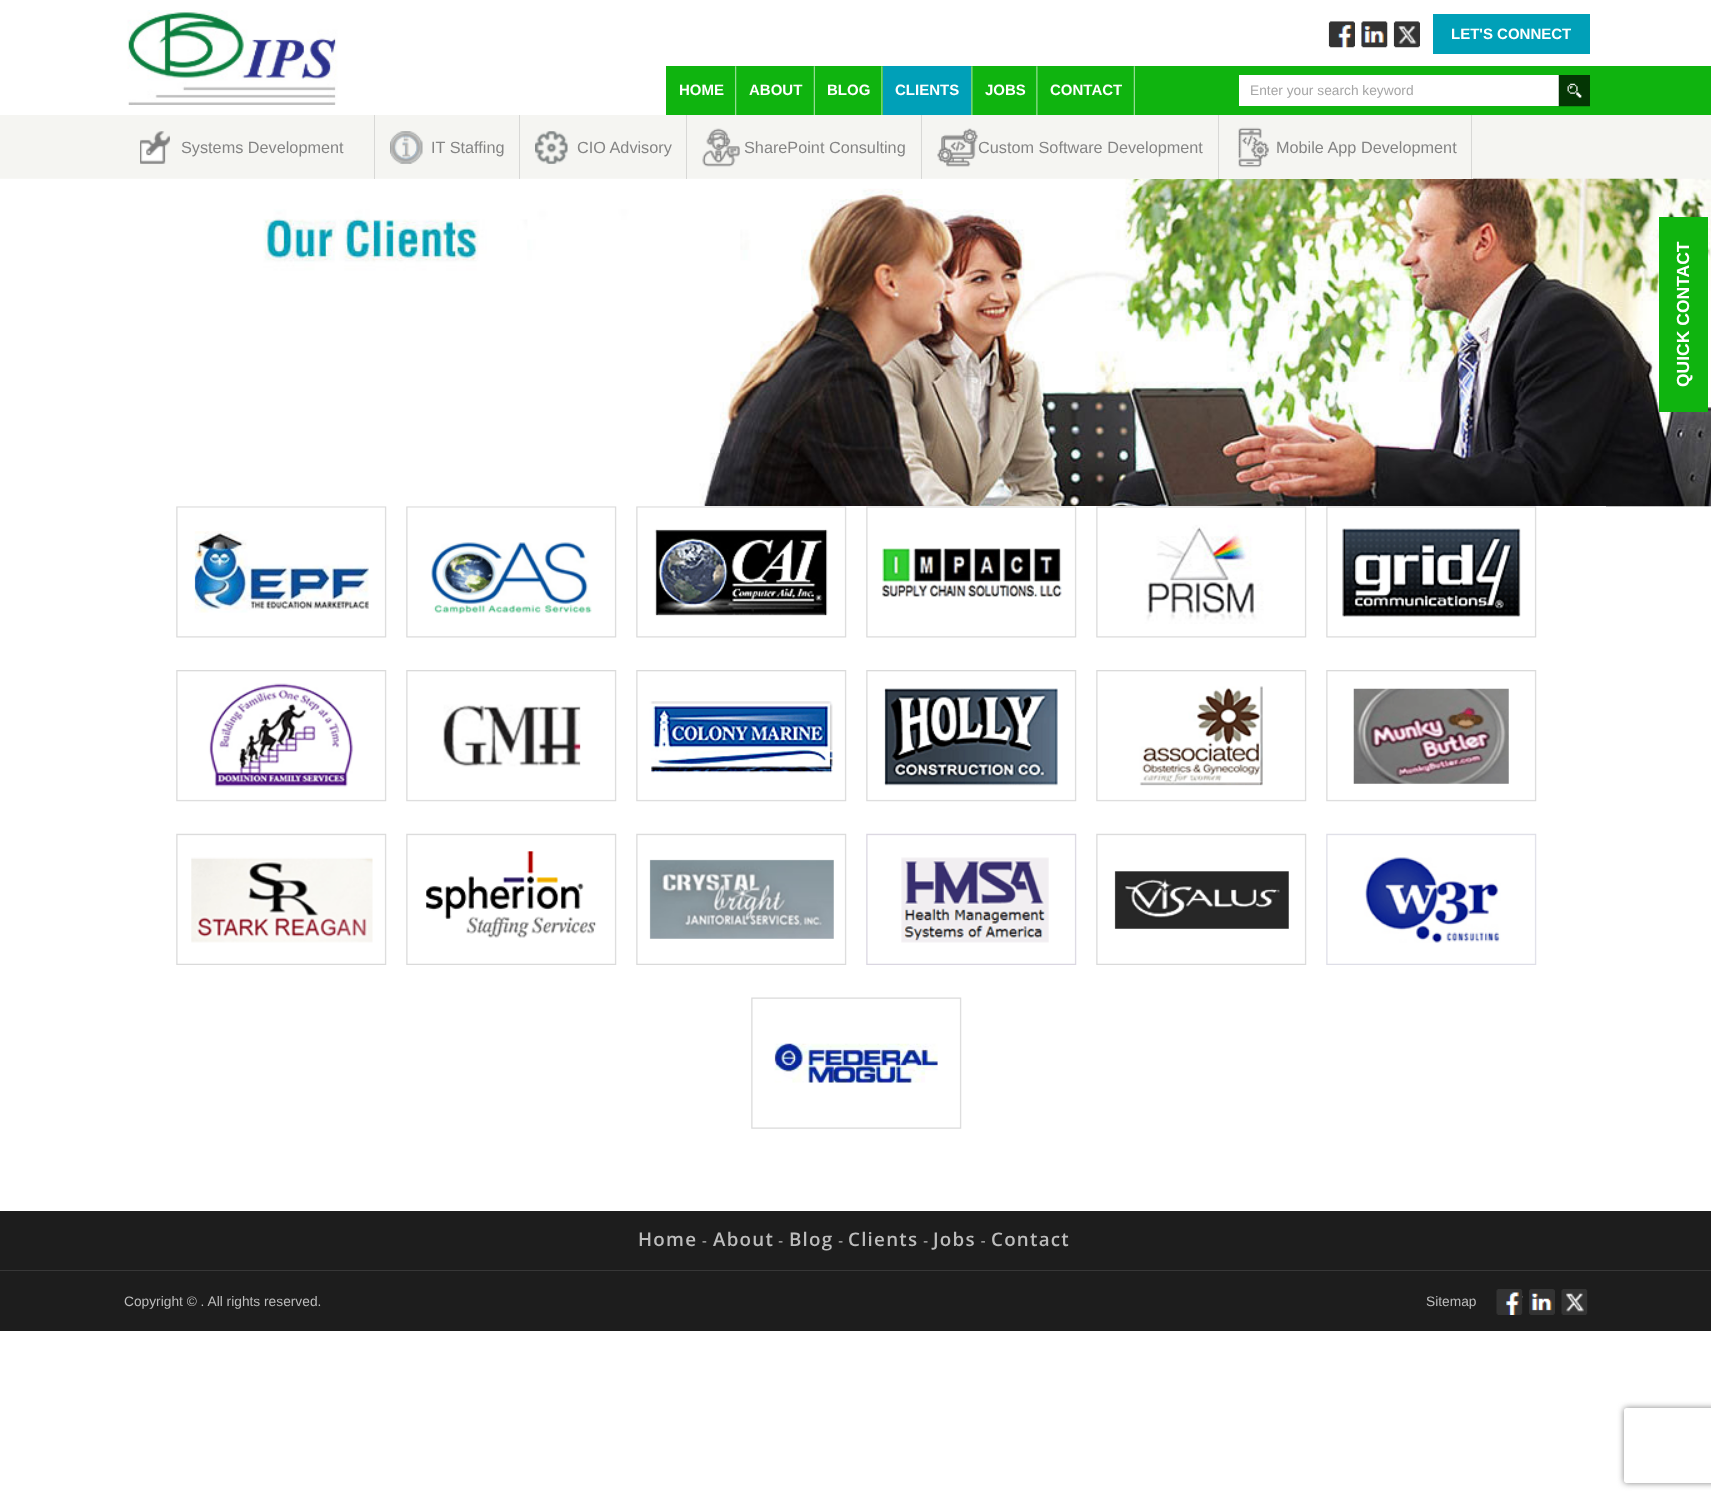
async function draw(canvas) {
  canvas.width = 1711;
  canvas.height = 1500;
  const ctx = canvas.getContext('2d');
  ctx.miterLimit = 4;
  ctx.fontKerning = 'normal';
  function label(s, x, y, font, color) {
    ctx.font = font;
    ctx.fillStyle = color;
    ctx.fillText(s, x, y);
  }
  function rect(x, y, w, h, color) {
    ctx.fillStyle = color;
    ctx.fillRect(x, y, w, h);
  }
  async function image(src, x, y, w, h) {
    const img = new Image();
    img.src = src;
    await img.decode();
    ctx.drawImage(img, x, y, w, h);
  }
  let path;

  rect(0, 0, 1711, 1500, '#fff');
  await image('assets/img1.png', 127, 10, 211, 95);
  await image('assets/img2.png', 1328, 21, 27, 27);
  await image('assets/img3.png', 1361, 21, 27, 27);
  await image('assets/img4.png', 1393, 21, 27, 27);
  rect(1433, 14, 157, 40, '#00a0b8');
  label('LET\'S CONNECT', 1451, 39, 'bold 15px Liberation Sans', '#fff');
  rect(666, 66, 1045, 49, '#0fb40f');
  await image('assets/img5.png', 735, 66, 2, 49);
  label('HOME', 679, 95, 'bold 15px Liberation Sans', '#fff');
  await image('assets/img6.png', 813, 66, 2, 49);
  label('ABOUT', 749, 95, 'bold 15px Liberation Sans', '#fff');
  await image('assets/img7.png', 881, 66, 2, 49);
  label('BLOG', 827, 95, 'bold 15px Liberation Sans', '#fff');
  await image('assets/img7.png', 971, 66, 2, 49);
  rect(883, 66, 88, 49, '#00a0b8');
  label('CLIENTS', 895, 95, 'bold 15px Liberation Sans', '#fff');
  await image('assets/img7.png', 1036, 66, 2, 49);
  label('JOBS', 985, 95, 'bold 15px Liberation Sans', '#fff');
  await image('assets/img6.png', 1133, 66, 2, 49);
  label('CONTACT', 1050, 95, 'bold 15px Liberation Sans', '#fff');
  rect(1239, 75, 320, 31, '#fff');
  label('Enter your search keyword', 1250, 95, '13.75px Liberation Sans', '#a6a6a6');
  await image('assets/img8.png', 1558, 75, 32, 32);
  rect(0, 115, 1711, 64, '#f5f5f2');
  await image('assets/img15.png', 0, 178, 1711, 329);
  rect(374, 115, 1, 64, '#d8d8d6');
  await image('assets/img9.png', 140, 131, 30, 33);
  label('Systems Development', 181, 153, '16.25px Liberation Sans', '#858585');
  rect(519, 115, 1, 64, '#d8d8d6');
  await image('assets/img10.png', 390, 131, 33, 33);
  label('IT Staffing', 431, 153, '16.25px Liberation Sans', '#858585');
  rect(686, 115, 1, 64, '#d8d8d6');
  await image('assets/img11.png', 535, 131, 33, 33);
  label('CIO Advisory', 577, 153, '16.25px Liberation Sans', '#858585');
  rect(921, 115, 1, 64, '#d8d8d6');
  await image('assets/img12.png', 702, 128, 38, 39);
  label('SharePoint Consulting', 744, 153, '16.25px Liberation Sans', '#858585');
  rect(1133, 178, 85, 1, '#f7f7f4');
  rect(1218, 115, 1, 64, '#d8d8d6');
  await image('assets/img13.png', 937, 128, 41, 39);
  label('Custom Software Development', 978, 153, '16.25px Liberation Sans', '#858585');
  rect(1219, 178, 254, 1, '#f7f7f4');
  rect(1471, 115, 1, 64, '#d8d8d6');
  await image('assets/img14.png', 1238, 127, 31, 41);
  label('Mobile App Development', 1276, 153, '16.25px Liberation Sans', '#858585');
  rect(704, 506, 902, 1, '#fff');
  await image('assets/img16.png', 176, 506, 211, 132);
  await image('assets/img17.png', 406, 506, 211, 132);
  await image('assets/img18.png', 636, 506, 211, 132);
  await image('assets/img19.png', 866, 506, 211, 132);
  await image('assets/img20.png', 1096, 506, 211, 132);
  await image('assets/img21.png', 1326, 506, 211, 132);
  await image('assets/img22.png', 176, 670, 211, 132);
  await image('assets/img23.png', 406, 670, 211, 132);
  await image('assets/img24.png', 636, 670, 211, 132);
  await image('assets/img25.png', 866, 670, 211, 132);
  await image('assets/img26.png', 1096, 670, 211, 132);
  await image('assets/img27.png', 1326, 670, 211, 132);
  await image('assets/img28.png', 176, 833, 211, 132);
  await image('assets/img29.png', 406, 833, 211, 132);
  await image('assets/img30.png', 636, 833, 211, 132);
  await image('assets/img31.png', 866, 833, 211, 132);
  await image('assets/img32.png', 1096, 833, 211, 132);
  await image('assets/img33.png', 1326, 833, 211, 132);
  await image('assets/img34.png', 751, 997, 211, 132);
  rect(0, 1211, 1711, 120, '#1d1d1d');
  rect(0, 1270, 1711, 1, '#373737');
  ctx.letterSpacing = '1.25px';
  label('Home', 638, 1246, '600 18.75px Open Sans', '#bcbcbc');
  await image('assets/img35.png', 702, 1241, 5, 2);
  label('About', 713, 1246, '600 18.75px Open Sans', '#bcbcbc');
  await image('assets/img36.png', 778, 1241, 5, 2);
  label('Blog', 789, 1246, '600 18.75px Open Sans', '#bcbcbc');
  await image('assets/img36.png', 838, 1241, 5, 2);
  label('Clients', 848, 1246, '600 18.75px Open Sans', '#bcbcbc');
  await image('assets/img36.png', 923, 1241, 5, 2);
  label('Jobs', 933, 1246, '600 18.75px Open Sans', '#bcbcbc');
  await image('assets/img37.png', 981, 1241, 4, 2);
  label('Contact', 991, 1246, '600 18.75px Open Sans', '#bcbcbc');
  ctx.letterSpacing = '0px';
  label('Copyright © . All rights reserved.', 124, 1306, '13.75px Liberation Sans', '#bcbcbc');
  label('Sitemap', 1426, 1306, '13.75px Liberation Sans', '#bcbcbc');
  await image('assets/img38.png', 1522, 1296, 1, 2);
  await image('assets/img39.png', 1496, 1289, 27, 26);
  await image('assets/img40.png', 1529, 1289, 26, 26);
  await image('assets/img41.png', 1561, 1289, 27, 26);
  rect(1659, 217, 49, 195, '#0fb40f');
  ctx.font = 'bold 17.5px Liberation Sans';
  ctx.fillStyle = '#fff';
  ctx.save();
  ctx.translate(1689, 387);
  ctx.rotate(-90 * Math.PI / 180);
  ctx.fillText('QUICK CONTACT', 0, 0);
  ctx.restore();
  ctx.save();
  path = new Path2D('M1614 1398H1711V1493H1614ZM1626.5 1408H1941.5C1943 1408 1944 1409 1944 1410.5V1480.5C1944 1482 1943 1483 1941.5 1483H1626.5C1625 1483 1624 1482 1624 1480.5V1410.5C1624 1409 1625 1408 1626.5 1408Z');
  ctx.clip(path, 'evenodd');
  ctx.fillStyle = '#808080';
  ctx.filter = 'blur(3px)';
  ctx.beginPath();
  ctx.roundRect(1624, 1408, 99, 75, 2.5);
  ctx.fill();
  ctx.filter = 'none';
  ctx.restore();
}

draw(document.querySelector('canvas'));
